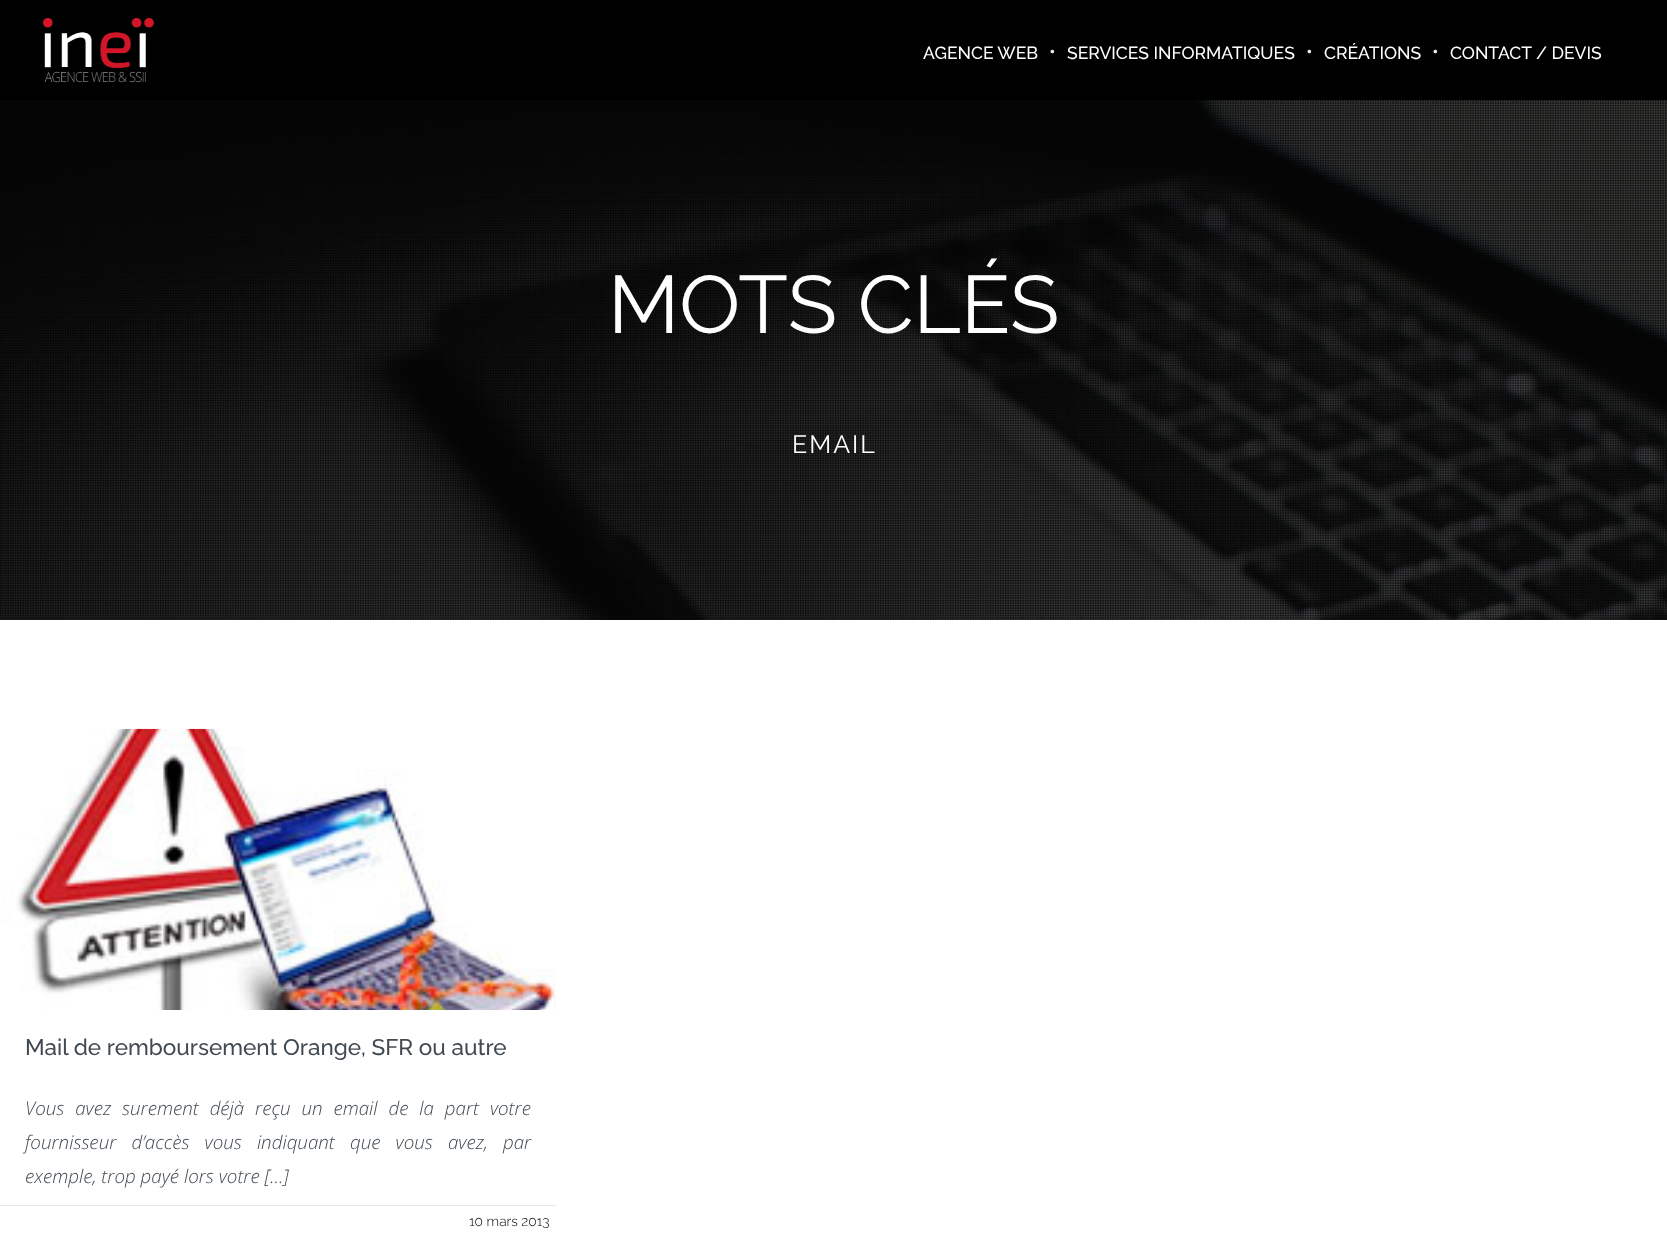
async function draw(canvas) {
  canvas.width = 1667;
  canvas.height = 1240;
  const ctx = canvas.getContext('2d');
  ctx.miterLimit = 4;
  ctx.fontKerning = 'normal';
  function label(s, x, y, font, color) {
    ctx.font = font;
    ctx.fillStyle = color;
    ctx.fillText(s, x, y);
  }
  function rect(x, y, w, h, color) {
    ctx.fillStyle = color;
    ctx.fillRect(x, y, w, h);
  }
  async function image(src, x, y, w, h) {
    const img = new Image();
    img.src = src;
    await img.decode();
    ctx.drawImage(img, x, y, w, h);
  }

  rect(0, 0, 1667, 1240, '#fff');
  rect(0, 0, 1667, 100, '#000');
  await image('assets/img1.png', 43, 18, 111, 65);
  label('AGENCE WEB', 923, 59, '500 17.5px Raleway', '#fff');
  label('•', 1049, 58, '500 18.75px Raleway', '#eee');
  label('SERVICES INFORMATIQUES', 1067, 59, '500 17.5px Raleway', '#fff');
  label('•', 1306, 58, '500 18.75px Raleway', '#eee');
  label('CRÉATIONS', 1324, 59, '500 17.5px Raleway', '#fff');
  label('•', 1432, 58, '500 18.75px Raleway', '#eee');
  label('CONTACT / DEVIS', 1450, 59, '500 17.5px Raleway', '#fff');
  await image('assets/img2.png', 0, 100, 1667, 520);
  await image('assets/img3.png', 0, 100, 1667, 520);
  label('MOTS CLÉS', 608, 333, '81.25px Raleway', '#fff');
  ctx.letterSpacing = '2px';
  label('EMAIL', 792, 453, '25px Raleway', '#fff');
  await image('assets/img4.png', 0, 728, 556, 282);
  ctx.letterSpacing = '0px';
  label('Mail de remboursement Orange, SFR ou autre', 25, 1055, '500 22.5px Raleway', '#414a52');
  ctx.wordSpacing = '6px';
  label('Vous avez surement déjà reçu un email de la part votre', 25, 1115, 'italic 300 18.75px Open Sans', '#414a52');
  ctx.wordSpacing = '10.25px';
  label('fournisseur d’accès vous indiquant que vous avez, par', 25, 1149, 'italic 300 18.75px Open Sans', '#414a52');
  ctx.wordSpacing = '0px';
  label('exemple, trop payé lors votre […]', 25, 1183, 'italic 300 18.75px Open Sans', '#414a52');
  rect(0, 1205, 556, 1, '#e5e7e9');
  label('10 mars 2013', 469, 1226, '300 13.75px Raleway', '#000');
}

draw(document.querySelector('canvas'));
